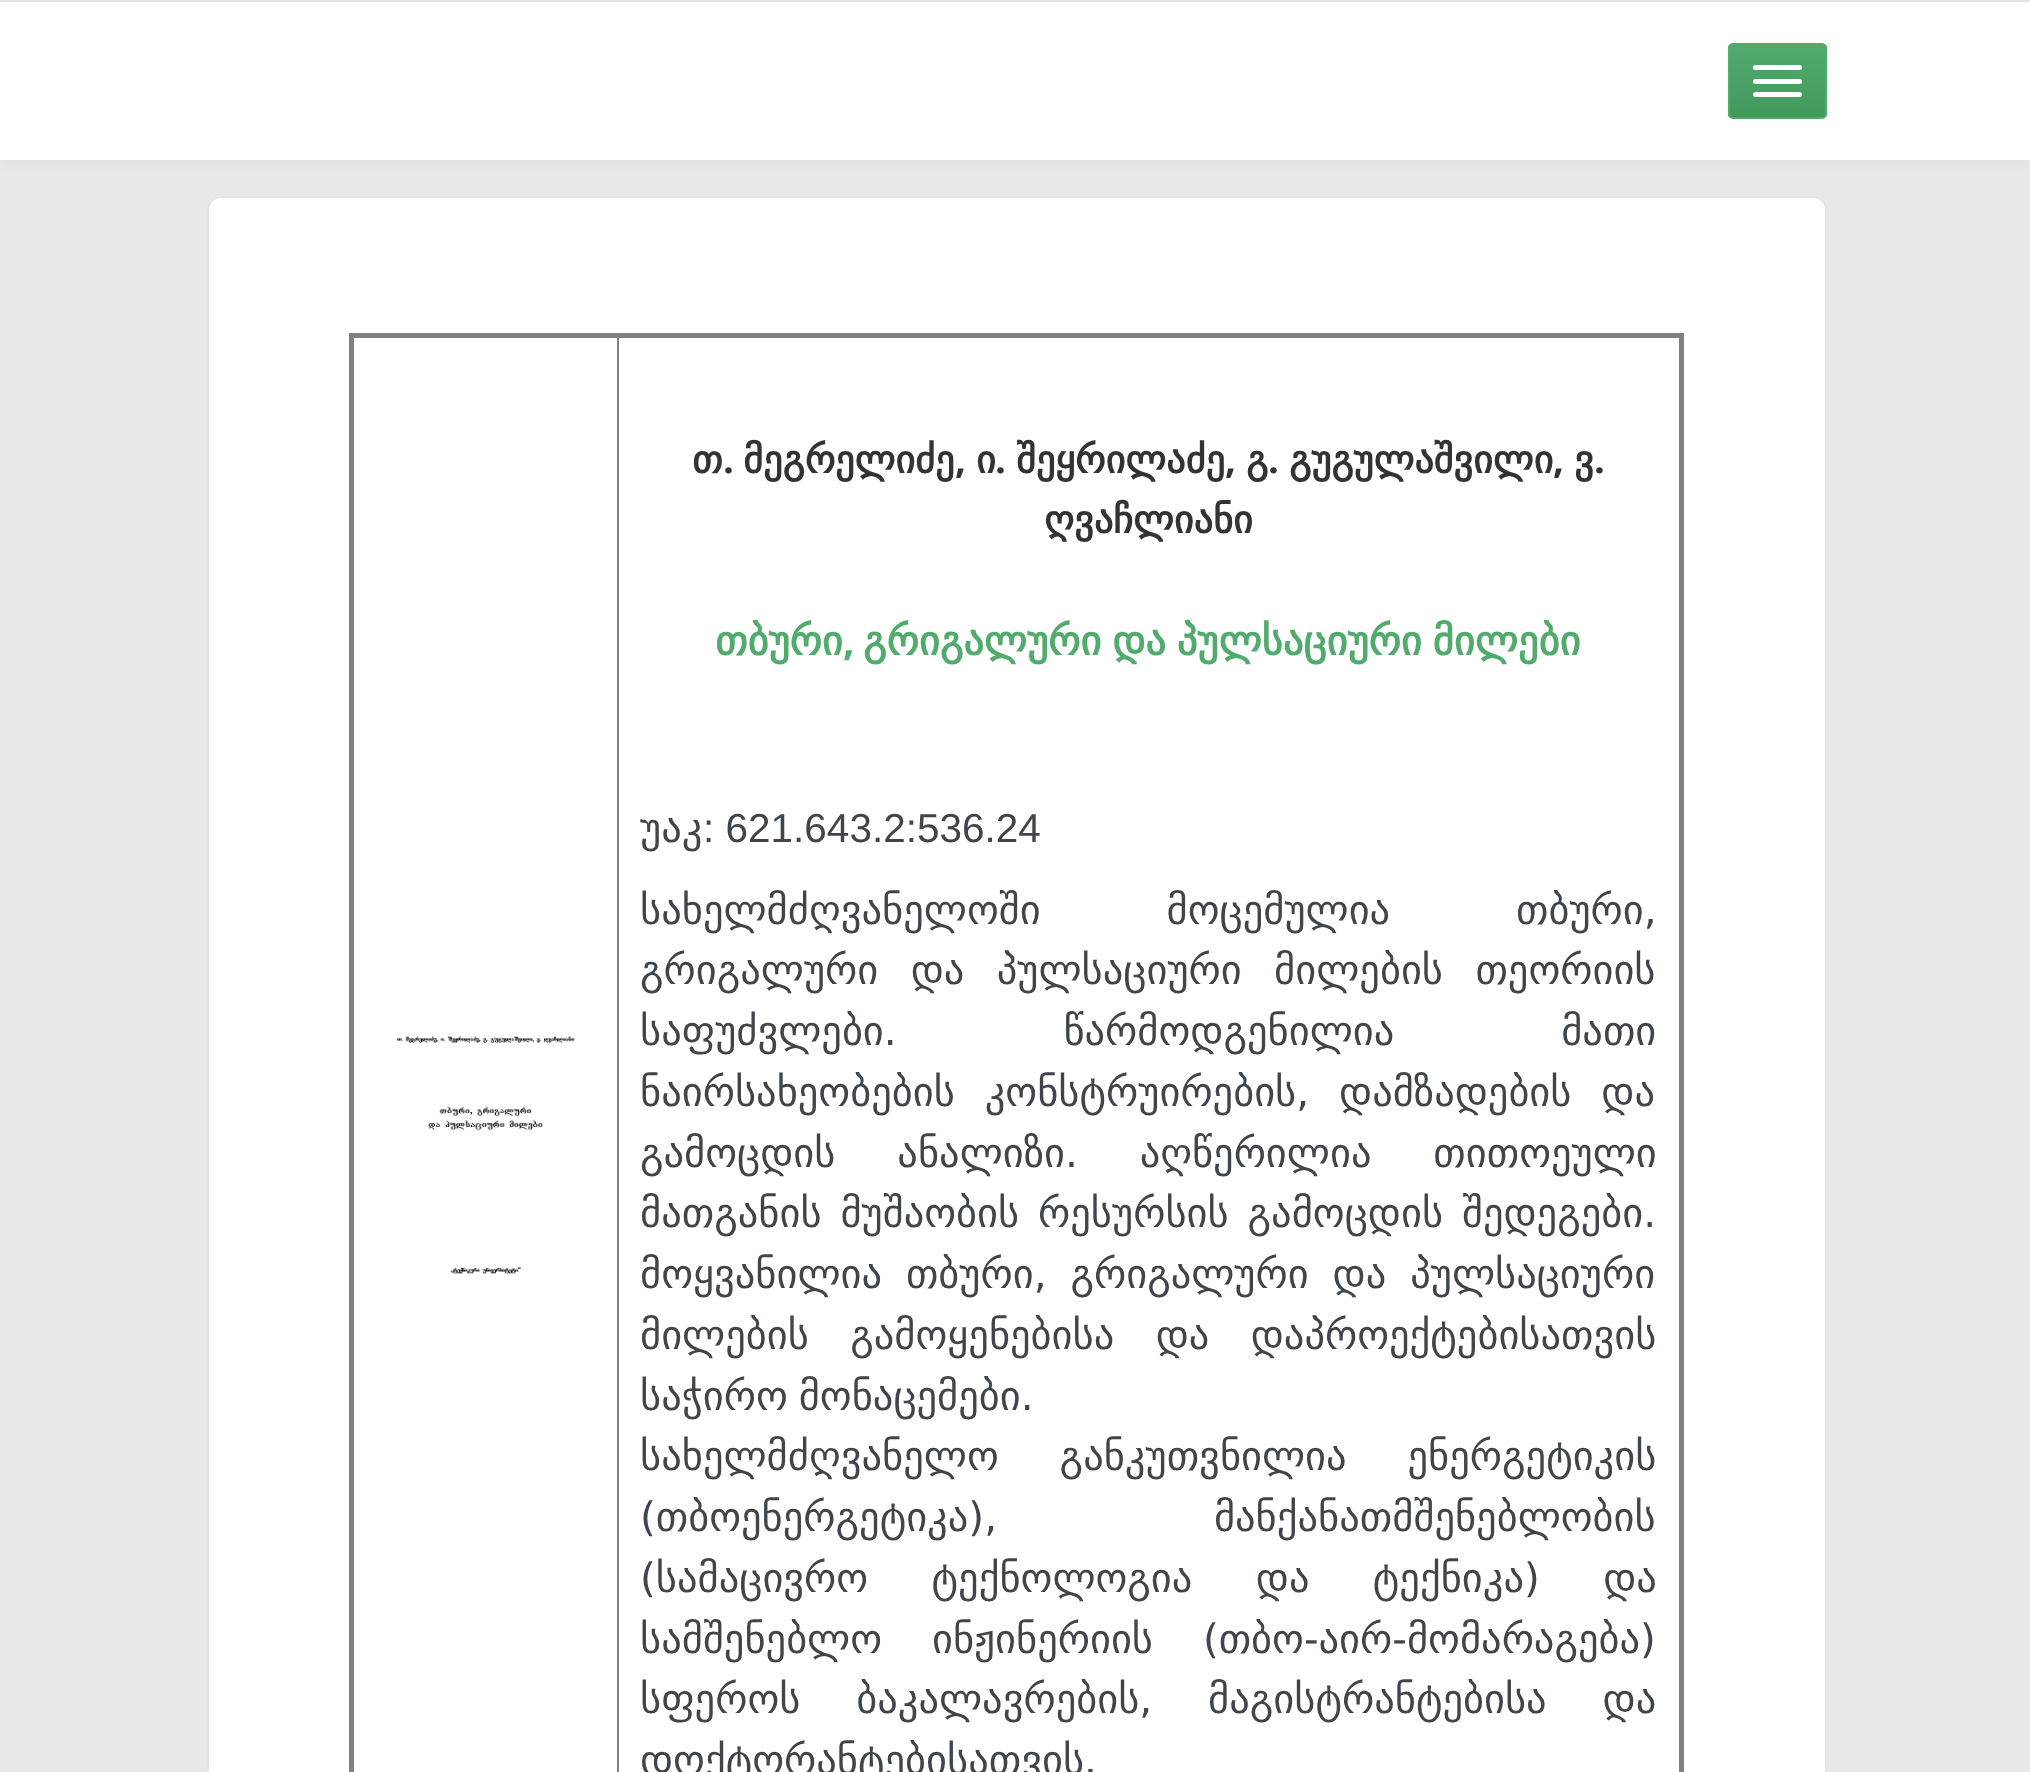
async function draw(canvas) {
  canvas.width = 2030;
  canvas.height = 1772;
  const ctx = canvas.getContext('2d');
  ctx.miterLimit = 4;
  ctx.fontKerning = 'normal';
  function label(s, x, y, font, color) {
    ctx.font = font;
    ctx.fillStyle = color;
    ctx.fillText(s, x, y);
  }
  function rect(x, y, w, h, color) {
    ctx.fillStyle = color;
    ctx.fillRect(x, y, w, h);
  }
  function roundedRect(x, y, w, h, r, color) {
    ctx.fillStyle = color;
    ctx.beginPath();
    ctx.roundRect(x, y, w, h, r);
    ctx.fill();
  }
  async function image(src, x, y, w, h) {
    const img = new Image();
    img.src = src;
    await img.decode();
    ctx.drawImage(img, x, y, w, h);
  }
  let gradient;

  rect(0, 0, 2030, 1772, '#e8e8e8');
  ctx.fillStyle = '#dcdddd';
  ctx.filter = 'blur(5.5px)';
  ctx.beginPath();
  ctx.rect(0, 2, 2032, 160);
  ctx.fill();
  ctx.filter = 'none';
  rect(0, 2, 2030, 158, '#fff');
  ctx.save();
  ctx.beginPath();
  ctx.roundRect(1728, 43, 99, 76, 5);
  ctx.clip();
  gradient = ctx.createLinearGradient(1778, 45, 1778, 117);
  gradient.addColorStop(0, '#51ab6d');
  gradient.addColorStop(1, '#419a5c');
  ctx.fillStyle = gradient;
  ctx.fillRect(1728, 45, 99, 72);
  ctx.restore();
  ctx.beginPath();
  ctx.roundRect(1729, 44, 97, 74, 4);
  ctx.strokeStyle = '#51ab6d';
  ctx.lineWidth = 2;
  ctx.stroke();
  roundedRect(1753, 65, 49, 5, 2.5, '#fff');
  roundedRect(1753, 79, 49, 5, 2.5, '#fff');
  roundedRect(1753, 92, 49, 5, 2.5, '#fff');
  ctx.beginPath();
  ctx.roundRect(208, 197, 1618, 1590, 13);
  ctx.fill();
  ctx.strokeStyle = '#e4e4e4';
  ctx.stroke();
  rect(617, 335, 2, 1437, '#808080');
  rect(349, 333, 1334, 5, '#808080');
  rect(1679, 333, 5, 1439, '#808080');
  rect(349, 333, 5, 1439, '#808080');
  await image('assets/img1.png', 397, 1036, 178, 238);
  label('თ', 692, 473, 'bold 38.25px DejaVu Sans', '#333');
  label('.', 723, 473, 'bold 38.25px Open Sans', '#333');
  label('მეგრელიძე', 743, 473, 'bold 38.25px DejaVu Sans', '#333');
  label(',', 955, 473, 'bold 38.25px Open Sans', '#333');
  label('ი', 976, 473, 'bold 38.25px DejaVu Sans', '#333');
  label('.', 995, 473, 'bold 38.25px Open Sans', '#333');
  label('შეყრილაძე', 1016, 473, 'bold 38.25px DejaVu Sans', '#333');
  label(',', 1225, 473, 'bold 38.25px Open Sans', '#333');
  label('გ', 1246, 473, 'bold 38.25px DejaVu Sans', '#333');
  label('.', 1268, 473, 'bold 38.25px Open Sans', '#333');
  label('გუგულაშვილი', 1289, 473, 'bold 38.25px DejaVu Sans', '#333');
  label(',', 1553, 473, 'bold 38.25px Open Sans', '#333');
  label('ვ', 1574, 473, 'bold 38.25px DejaVu Sans', '#333');
  label('.', 1594, 473, 'bold 38.25px Open Sans', '#333');
  label('ღვაჩლიანი', 1044, 533, 'bold 38.25px DejaVu Sans', '#333');
  label('თბური', 715, 655, 'bold 40.5px DejaVu Sans', '#51ab6d');
  label(',', 843, 655, 'bold 40.5px Open Sans', '#51ab6d');
  ctx.wordSpacing = '-2px';
  label('გრიგალური და პულსაციური მილები', 863, 655, 'bold 40.5px DejaVu Sans', '#51ab6d');
  ctx.wordSpacing = '0px';
  label('უაკ', 640, 842, '40.5px DejaVu Sans', '#40454a');
  label(': 621.643.2:536.24', 703, 842, '40.5px Liberation Sans', '#40454a');
  ctx.wordSpacing = '113px';
  label('სახელმძღვანელოში მოცემულია თბური,', 640, 924, '40.5px DejaVu Sans', '#40454a');
  ctx.wordSpacing = '19.5px';
  label('გრიგალური და პულსაციური მილების თეორიის', 640, 984, '40.5px DejaVu Sans', '#40454a');
  ctx.wordSpacing = '154px';
  label('საფუძვლები. წარმოდგენილია მათი', 640, 1045, '40.5px DejaVu Sans', '#40454a');
  ctx.wordSpacing = '17px';
  label('ნაირსახეობების კონსტრუირების, დამზადების და', 640, 1106, '40.5px DejaVu Sans', '#40454a');
  ctx.wordSpacing = '49px';
  label('გამოცდის ანალიზი. აღწერილია თითოეული', 640, 1167, '40.5px DejaVu Sans', '#40454a');
  ctx.wordSpacing = '6px';
  label('მათგანის მუშაობის რესურსის გამოცდის შედეგები.', 640, 1227, '40.5px DejaVu Sans', '#40454a');
  ctx.wordSpacing = '11px';
  label('მოყვანილია თბური, გრიგალური და პულსაციური', 640, 1288, '40.5px DejaVu Sans', '#40454a');
  ctx.wordSpacing = '28.5px';
  label('მილების გამოყენებისა და დაპროექტებისათვის', 640, 1349, '40.5px DejaVu Sans', '#40454a');
  ctx.wordSpacing = '-2px';
  label('საჭირო მონაცემები.', 640, 1410, '40.5px DejaVu Sans', '#40454a');
  ctx.wordSpacing = '48px';
  label('სახელმძღვანელო განკუთვნილია ენერგეტიკის', 640, 1470, '40.5px DejaVu Sans', '#40454a');
  ctx.wordSpacing = '204px';
  label('(თბოენერგეტიკა), მანქანათმშენებლობის', 640, 1531, '40.5px DejaVu Sans', '#40454a');
  ctx.wordSpacing = '50.5px';
  label('(სამაცივრო ტექნოლოგია და ტექნიკა) და', 640, 1592, '40.5px DejaVu Sans', '#40454a');
  ctx.wordSpacing = '37px';
  label('სამშენებლო ინჟინერიის (თბო-აირ-მომარაგება)', 640, 1653, '40.5px DejaVu Sans', '#40454a');
  ctx.wordSpacing = '43px';
  label('სფეროს ბაკალავრების, მაგისტრანტებისა და', 640, 1713, '40.5px DejaVu Sans', '#40454a');
  ctx.wordSpacing = '0px';
  label('დოქტორანტებისათვის.', 640, 1774, '40.5px DejaVu Sans', '#40454a');
}

draw(document.querySelector('canvas'));
